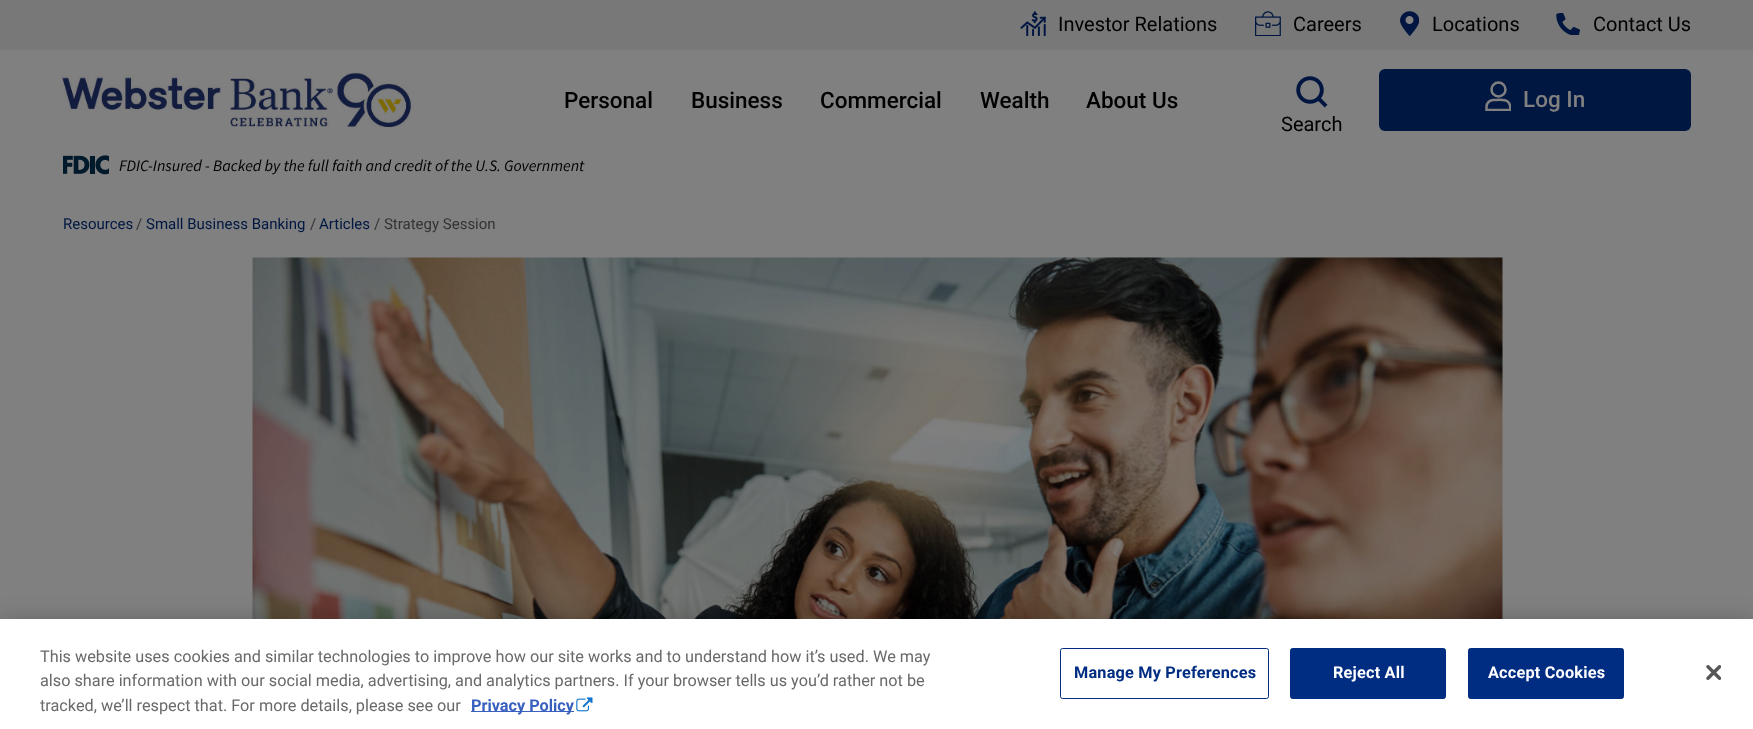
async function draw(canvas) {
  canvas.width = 1753;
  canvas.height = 729;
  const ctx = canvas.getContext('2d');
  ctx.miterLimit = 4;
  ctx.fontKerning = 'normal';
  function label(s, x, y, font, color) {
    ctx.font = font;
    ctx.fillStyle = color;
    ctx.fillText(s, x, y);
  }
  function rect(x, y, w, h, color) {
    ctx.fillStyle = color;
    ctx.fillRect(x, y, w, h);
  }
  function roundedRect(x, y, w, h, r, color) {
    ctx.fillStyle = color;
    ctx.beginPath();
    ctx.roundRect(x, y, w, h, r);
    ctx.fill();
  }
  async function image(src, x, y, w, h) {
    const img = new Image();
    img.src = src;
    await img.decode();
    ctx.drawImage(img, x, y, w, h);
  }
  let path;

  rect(0, 0, 1753, 729, '#808080');
  rect(0, 0, 1753, 50, '#787878');
  await image('assets/img1.png', 1020, 11, 26, 25);
  label('Investor Relations', 1058, 31, '20px Roboto', '#000');
  await image('assets/img2.png', 1255, 11, 26, 25);
  label('Careers', 1293, 31, '20px Roboto', '#000');
  await image('assets/img3.png', 1400, 11, 19, 25);
  label('Locations', 1432, 31, '20px Roboto', '#000');
  await image('assets/img4.png', 1556, 13, 24, 22);
  label('Contact Us', 1593, 31, '20px Roboto', '#000');
  await image('assets/img5.png', 62, 72, 350, 56);
  label('Personal', 564, 108, '500 22.5px Roboto', '#000');
  label('Business', 691, 108, '500 22.5px Roboto', '#000');
  label('Commercial', 820, 108, '500 22.5px Roboto', '#000');
  label('Wealth', 980, 108, '500 22.5px Roboto', '#000');
  label('About Us', 1086, 108, '500 22.5px Roboto', '#000');
  await image('assets/img6.png', 1296, 76, 32, 32);
  label('Search', 1281, 131, '20px Roboto', '#000');
  roundedRect(1379, 69, 312, 62, 6, '#001741');
  ctx.beginPath();
  ctx.arc(1498.5, 89.5, 7, 0, 2 * Math.PI);
  ctx.strokeStyle = '#808080';
  ctx.lineWidth = 2.5;
  ctx.stroke();
  ctx.save();
  ctx.beginPath();
  ctx.rect(1485, 81, 26, 30);
  ctx.clip();
  path = new Path2D('M1493.5 100C1499 100 1508.5 98 1510 105.5L1510.5 110H1486.5V107C1486.5 103 1489.5 100 1493.5 100Z');
  ctx.stroke(path);
  ctx.restore();
  label('Log In', 1523, 107, '500 22.5px Roboto', '#808080');
  await image('assets/img7.png', 63, 155, 46, 20);
  label('FDIC-Insured - Backed by the full faith and credit of the U.S. Government', 119, 171, 'italic 16px Source Sans Pro', '#000');
  label('Resources', 63, 229, '15px Roboto', '#001741');
  label('/', 136, 229, '15px Roboto', '#333');
  label('Small Business Banking', 146, 229, '15px Roboto', '#001741');
  label('/', 310, 229, '15px Roboto', '#333');
  label('Articles', 319, 229, '15px Roboto', '#001741');
  label('/ Strategy Session', 374, 229, '15px Roboto', '#333');
  await image('assets/img8.png', 252, 257, 1251, 362);
  ctx.fillStyle = '#00000033';
  ctx.filter = 'blur(11px)';
  ctx.beginPath();
  ctx.rect(0, 619, 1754, 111);
  ctx.fill();
  ctx.filter = 'none';
  rect(0, 619, 1753, 110, '#fff');
  label('This website uses cookies and similar technologies to improve how our site works and to understand how it’s used. We may', 40, 662, '16.25px Roboto', '#696969');
  label('also share information with our social media, advertising, and analytics partners. If your browser tells us you’d rather not be', 40, 686, '16.25px Roboto', '#696969');
  label('tracked, we’ll respect that. For more details, please see our', 40, 711, '16.25px Roboto', '#696969');
  rect(471, 711, 103, 1, '#3860be');
  label('Privacy Policy', 471, 711, 'bold 16.25px Roboto', '#3860be');
  await image('assets/img9.png', 576, 697, 17, 15);
  ctx.beginPath();
  ctx.roundRect(1060.5, 648.5, 208, 50, 2);
  ctx.strokeStyle = '#002d82';
  ctx.lineWidth = 1;
  ctx.stroke();
  ctx.letterSpacing = '0.2px';
  label('Manage My Preferences', 1074, 678, 'bold 16.25px Roboto', '#002d82');
  ctx.beginPath();
  ctx.roundRect(1290.5, 648.5, 155, 50, 2);
  ctx.fill();
  ctx.stroke();
  label('Reject All', 1333, 678, 'bold 16.25px Roboto', '#fff');
  ctx.fillStyle = '#002d82';
  ctx.beginPath();
  ctx.roundRect(1468.5, 648.5, 155, 50, 2);
  ctx.fill();
  ctx.stroke();
  label('Accept Cookies', 1488, 678, 'bold 16.25px Roboto', '#fff');
  await image('assets/img10.png', 1706, 665, 15, 15);
}

draw(document.querySelector('canvas'));
